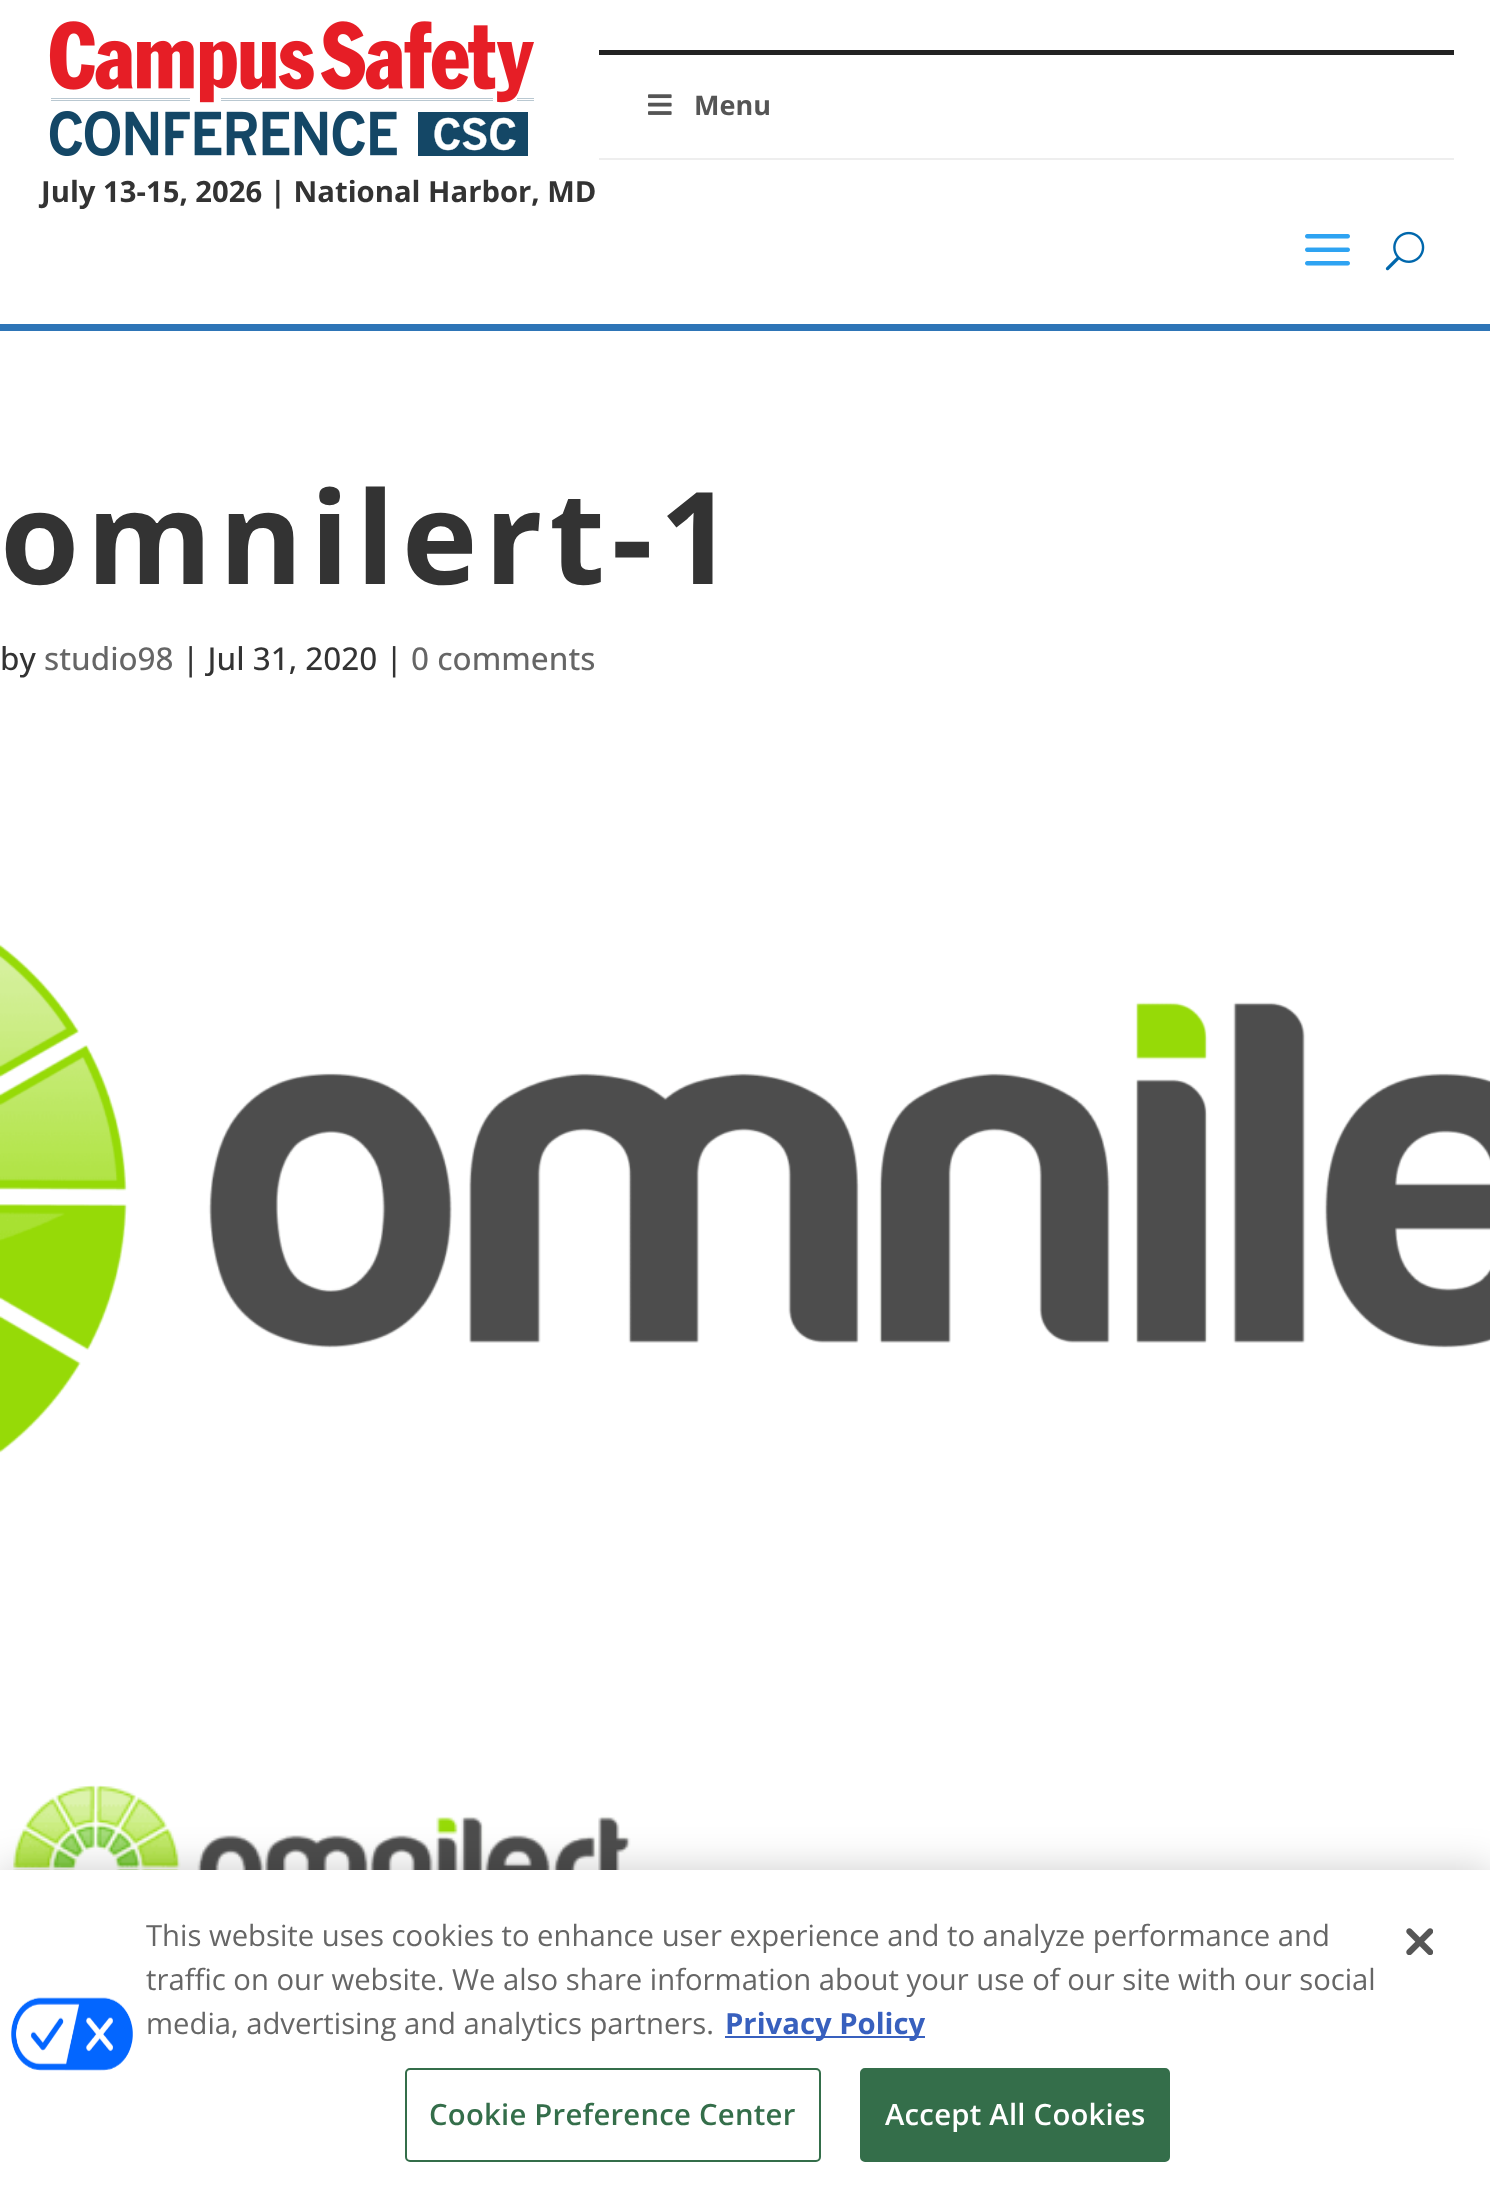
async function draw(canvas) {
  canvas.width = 1490;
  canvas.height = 2198;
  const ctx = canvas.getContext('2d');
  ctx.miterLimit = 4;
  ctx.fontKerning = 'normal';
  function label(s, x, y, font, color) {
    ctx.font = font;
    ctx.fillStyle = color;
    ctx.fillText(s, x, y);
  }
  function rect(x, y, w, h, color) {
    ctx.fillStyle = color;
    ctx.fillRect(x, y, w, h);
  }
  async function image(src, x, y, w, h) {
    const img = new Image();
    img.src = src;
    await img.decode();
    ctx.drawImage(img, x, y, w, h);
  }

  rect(0, 0, 1490, 2198, '#fff');
  rect(0, 324, 1490, 7, '#2e75b7');
  rect(599, 50, 855, 5, '#222');
  rect(599, 158, 855, 2, '#eee');
  await image('assets/img1.png', 648, 94, 24, 21);
  label('Menu', 694, 115, 'bold 27px Open Sans', '#555');
  await image('assets/img2.png', 1305, 234, 45, 32);
  await image('assets/img3.png', 1385, 231, 40, 40);
  await image('assets/img4.png', 49, 21, 485, 135);
  label('July 13-15, 2026 | National Harbor, MD', 41, 202, 'bold 29.25px Open Sans', '#333');
  ctx.letterSpacing = '6.75px';
  label('omnilert-1', 0, 584, 'bold 128.25px Open Sans', '#333');
  ctx.letterSpacing = '0px';
  label('by', 0, 670, '500 31.5px Open Sans', '#333');
  label('studio98', 44, 670, '500 31.5px Open Sans', '#666');
  label('| Jul 31, 2020 |', 182, 670, '500 31.5px Open Sans', '#333');
  label('0 comments', 411, 670, '500 31.5px Open Sans', '#666');
  await image('assets/img5.png', 0, 944, 1490, 509);
  await image('assets/img6.png', 13, 1785, 618, 85);
  ctx.fillStyle = '#00000033';
  ctx.filter = 'blur(20px)';
  ctx.beginPath();
  ctx.rect(0, 1870, 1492, 328);
  ctx.fill();
  ctx.filter = 'none';
  rect(0, 1870, 1490, 328, '#fff');
  await image('assets/img7.png', 11, 1997, 122, 74);
  label('This website uses cookies to enhance user experience and to analyze performance and', 146, 1946, '29.25px Open Sans', '#666');
  label('traffic on our website. We also share information about your use of our site with our social', 146, 1990, '29.25px Open Sans', '#666');
  label('media, advertising and analytics partners.', 146, 2034, '29.25px Open Sans', '#666');
  rect(725, 2036, 200, 2, '#3860be');
  label('Privacy Policy', 725, 2034, 'bold 29.25px Open Sans', '#3860be');
  ctx.beginPath();
  ctx.roundRect(406, 2069, 414, 92, 4);
  ctx.strokeStyle = '#346e4a';
  ctx.lineWidth = 2;
  ctx.stroke();
  ctx.letterSpacing = '0.25px';
  label('Cookie Preference Center', 429, 2125, '600 29.25px Open Sans', '#346e4a');
  ctx.beginPath();
  ctx.roundRect(861, 2069, 308, 92, 4);
  ctx.fill();
  ctx.stroke();
  label('Accept All Cookies', 885, 2125, '600 29.25px Open Sans', '#fff');
  await image('assets/img8.png', 1406, 1928, 27, 27);
}

draw(document.querySelector('canvas'));
